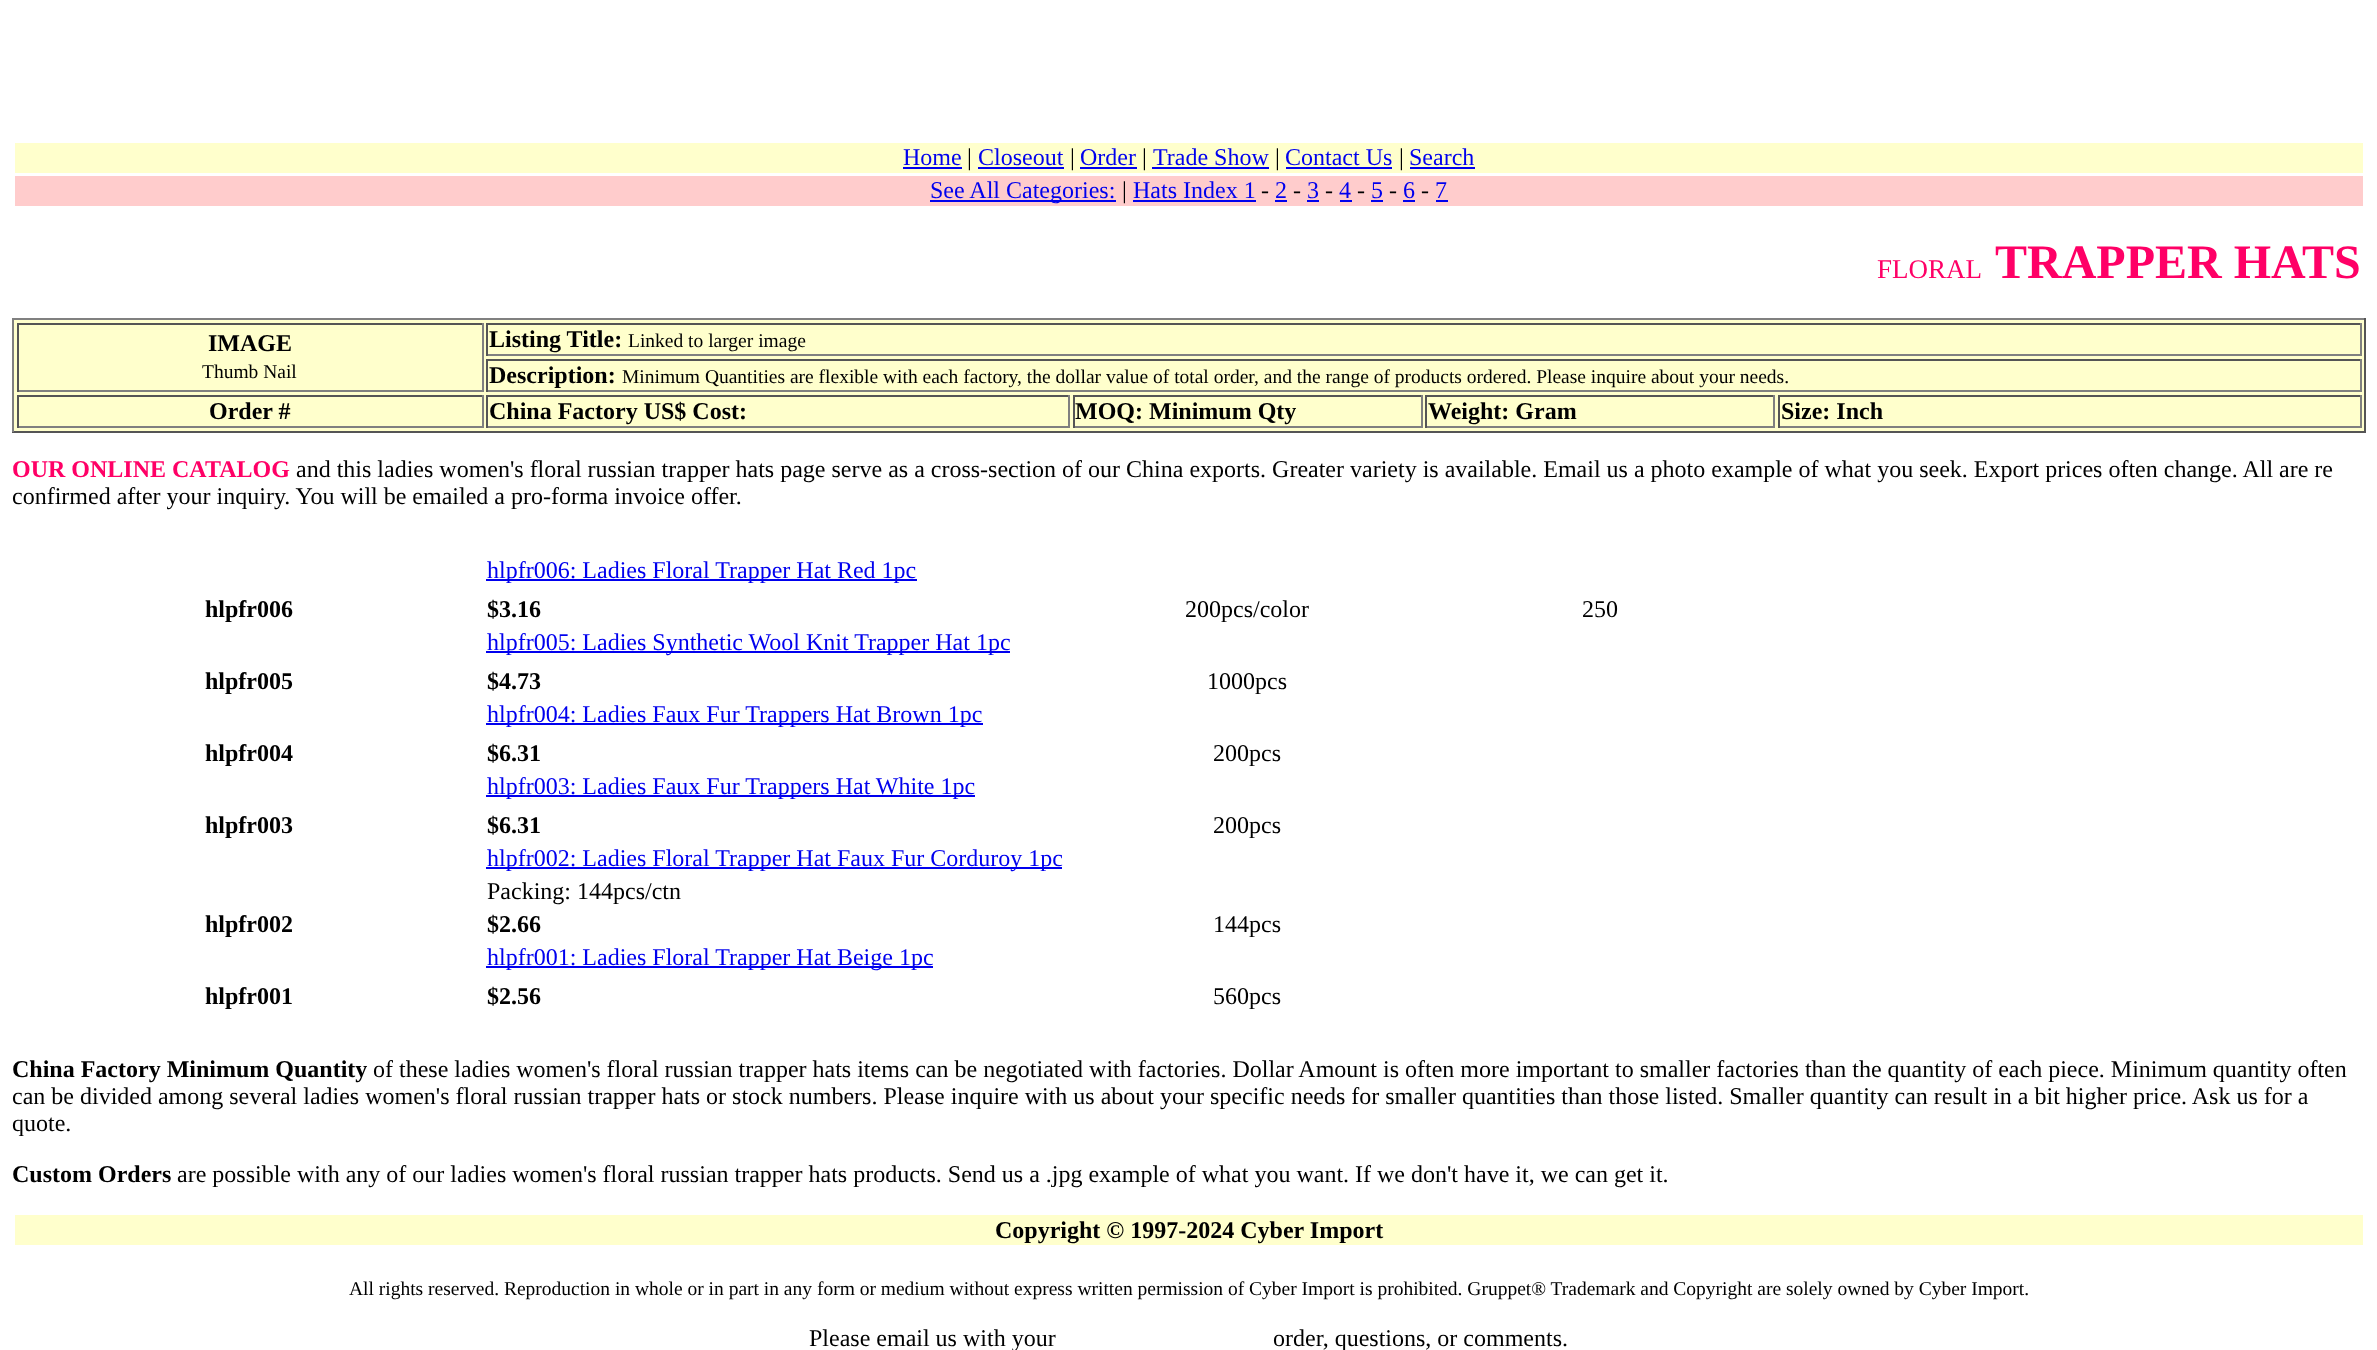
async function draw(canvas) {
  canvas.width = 2377;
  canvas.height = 1350;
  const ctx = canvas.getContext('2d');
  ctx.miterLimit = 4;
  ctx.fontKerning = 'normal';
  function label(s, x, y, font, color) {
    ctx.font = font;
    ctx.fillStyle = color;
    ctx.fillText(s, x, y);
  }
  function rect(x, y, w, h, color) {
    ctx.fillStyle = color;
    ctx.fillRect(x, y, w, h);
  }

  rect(0, 0, 2377, 1350, '#fff');
  rect(15, 143, 2348, 30, '#ffc');
  label('Home', 903, 165, '24px Liberation Serif', '#00e');
  rect(903, 167, 59, 2, '#00e');
  label('|', 967, 165, '24px Liberation Serif', '#000');
  label('Closeout', 978, 165, '24px Liberation Serif', '#00e');
  rect(978, 167, 86, 2, '#00e');
  label('|', 1070, 165, '24px Liberation Serif', '#000');
  label('Order', 1080, 165, '24px Liberation Serif', '#00e');
  rect(1080, 167, 57, 2, '#00e');
  label('|', 1142, 165, '24px Liberation Serif', '#000');
  label('Trade Show', 1153, 165, '24px Liberation Serif', '#00e');
  rect(1152, 167, 117, 2, '#00e');
  label('|', 1275, 165, '24px Liberation Serif', '#000');
  label('Contact Us', 1285, 165, '24px Liberation Serif', '#00e');
  rect(1286, 167, 106, 2, '#00e');
  label('|', 1399, 165, '24px Liberation Serif', '#000');
  label('Search', 1409, 165, '24px Liberation Serif', '#00e');
  rect(1410, 167, 65, 2, '#00e');
  rect(15, 176, 2348, 30, '#fcc');
  rect(930, 200, 186, 2, '#00e');
  label('See All Categories:', 930, 198, '24px Liberation Serif', '#00e');
  label('|', 1122, 198, '24px Liberation Serif', '#000');
  label('Hats Index 1', 1133, 198, '24px Liberation Serif', '#00e');
  rect(1133, 200, 123, 2, '#00e');
  label('-', 1261, 198, '24px Liberation Serif', '#000');
  label('2', 1275, 198, '24px Liberation Serif', '#00e');
  rect(1275, 200, 12, 2, '#00e');
  label('-', 1293, 198, '24px Liberation Serif', '#000');
  label('3', 1307, 198, '24px Liberation Serif', '#00e');
  rect(1307, 200, 12, 2, '#00e');
  label('-', 1325, 198, '24px Liberation Serif', '#000');
  label('4', 1339, 198, '24px Liberation Serif', '#00e');
  rect(1340, 200, 12, 2, '#00e');
  label('-', 1357, 198, '24px Liberation Serif', '#000');
  label('5', 1371, 198, '24px Liberation Serif', '#00e');
  rect(1371, 200, 12, 2, '#00e');
  label('-', 1389, 198, '24px Liberation Serif', '#000');
  label('6', 1403, 198, '24px Liberation Serif', '#00e');
  rect(1403, 200, 12, 2, '#00e');
  label('-', 1421, 198, '24px Liberation Serif', '#000');
  label('7', 1435, 198, '24px Liberation Serif', '#00e');
  rect(1436, 200, 12, 2, '#00e');
  label('FLORAL', 1877, 278, '27px Liberation Serif', '#f06');
  label('TRAPPER HATS', 1995, 278, 'bold 48px Liberation Serif', '#f06');
  rect(14, 320, 2350, 111, '#ffc');
  rect(12, 318, 2354, 2, '#808080');
  rect(2364, 318, 2, 114, '#555');
  rect(12, 431, 2354, 2, '#555');
  rect(12, 318, 2, 114, '#808080');
  rect(17, 323, 466, 2, '#555');
  rect(482, 323, 2, 69, '#808080');
  rect(17, 390, 466, 2, '#808080');
  rect(17, 323, 2, 69, '#555');
  label('IMAGE', 208, 351, 'bold 24px Liberation Serif', '#000');
  label('Thumb Nail', 202, 378, '19.5px Liberation Serif', '#000');
  rect(486, 323, 1875, 2, '#555');
  rect(2360, 323, 2, 33, '#808080');
  rect(486, 354, 1875, 2, '#808080');
  rect(486, 323, 2, 33, '#555');
  label('Listing Title:', 489, 347, 'bold 24px Liberation Serif', '#000');
  label('Linked to larger image', 628, 347, '19.5px Liberation Serif', '#000');
  rect(486, 359, 1875, 2, '#555');
  rect(2360, 359, 2, 33, '#808080');
  rect(486, 390, 1875, 2, '#808080');
  rect(486, 359, 2, 33, '#555');
  label('Description:', 489, 383, 'bold 24px Liberation Serif', '#000');
  label('Minimum Quantities are flexible with each factory, the dollar value of total order, and the range of products ordered. Please inquire about your needs.', 622, 383, '19.5px Liberation Serif', '#000');
  rect(17, 395, 466, 2, '#555');
  rect(482, 395, 2, 33, '#808080');
  rect(17, 426, 466, 2, '#808080');
  rect(17, 395, 2, 33, '#555');
  label('Order #', 209, 419, 'bold 24px Liberation Serif', '#000');
  rect(486, 395, 584, 2, '#555');
  rect(1068, 395, 2, 33, '#808080');
  rect(486, 426, 584, 2, '#808080');
  rect(486, 395, 2, 33, '#555');
  label('China Factory US$ Cost:', 489, 419, 'bold 24px Liberation Serif', '#000');
  rect(1073, 395, 349, 2, '#555');
  rect(1421, 395, 2, 33, '#808080');
  rect(1073, 426, 349, 2, '#808080');
  rect(1073, 395, 2, 33, '#555');
  label('MOQ: Minimum Qty', 1075, 419, 'bold 24px Liberation Serif', '#000');
  rect(1425, 395, 350, 2, '#555');
  rect(1773, 395, 2, 33, '#808080');
  rect(1425, 426, 350, 2, '#808080');
  rect(1425, 395, 2, 33, '#555');
  label('Weight: Gram', 1428, 419, 'bold 24px Liberation Serif', '#000');
  rect(1778, 395, 583, 2, '#555');
  rect(2360, 395, 2, 33, '#808080');
  rect(1778, 426, 583, 2, '#808080');
  rect(1778, 395, 2, 33, '#555');
  label('Size: Inch', 1781, 419, 'bold 24px Liberation Serif', '#000');
  label('OUR ONLINE CATALOG', 12, 477, 'bold 24px Liberation Serif', '#f06');
  label('and this ladies women\'s floral russian trapper hats page serve as a cross-section of our China exports. Greater variety is available. Email us a photo example of what you seek. Export prices often change. All are re', 296, 477, '24px Liberation Serif', '#000');
  label('confirmed after your inquiry. You will be emailed a pro-forma invoice offer.', 12, 504, '24px Liberation Serif', '#000');
  rect(486, 579, 431, 2, '#00e');
  label('hlpfr006: Ladies Floral Trapper Hat Red 1pc', 487, 578, '24px Liberation Serif', '#00e');
  label('hlpfr006', 205, 617, 'bold 24px Liberation Serif', '#000');
  label('$3.16', 487, 617, 'bold 24px Liberation Serif', '#000');
  label('200pcs/color', 1185, 617, '24px Liberation Serif', '#000');
  label('250', 1582, 617, '24px Liberation Serif', '#000');
  rect(486, 651, 524, 2, '#00e');
  label('hlpfr005: Ladies Synthetic Wool Knit Trapper Hat 1pc', 487, 650, '24px Liberation Serif', '#00e');
  label('hlpfr005', 205, 689, 'bold 24px Liberation Serif', '#000');
  label('$4.73', 487, 689, 'bold 24px Liberation Serif', '#000');
  label('1000pcs', 1207, 689, '24px Liberation Serif', '#000');
  rect(486, 723, 497, 2, '#00e');
  label('hlpfr004: Ladies Faux Fur Trappers Hat Brown 1pc', 487, 722, '24px Liberation Serif', '#00e');
  label('hlpfr004', 205, 761, 'bold 24px Liberation Serif', '#000');
  label('$6.31', 487, 761, 'bold 24px Liberation Serif', '#000');
  label('200pcs', 1213, 761, '24px Liberation Serif', '#000');
  rect(486, 795, 489, 2, '#00e');
  label('hlpfr003: Ladies Faux Fur Trappers Hat White 1pc', 487, 794, '24px Liberation Serif', '#00e');
  label('hlpfr003', 205, 833, 'bold 24px Liberation Serif', '#000');
  label('$6.31', 487, 833, 'bold 24px Liberation Serif', '#000');
  label('200pcs', 1213, 833, '24px Liberation Serif', '#000');
  rect(486, 867, 576, 2, '#00e');
  label('hlpfr002: Ladies Floral Trapper Hat Faux Fur Corduroy 1pc', 487, 866, '24px Liberation Serif', '#00e');
  label('Packing: 144pcs/ctn', 487, 899, '24px Liberation Serif', '#000');
  label('hlpfr002', 205, 932, 'bold 24px Liberation Serif', '#000');
  label('$2.66', 487, 932, 'bold 24px Liberation Serif', '#000');
  label('144pcs', 1213, 932, '24px Liberation Serif', '#000');
  rect(486, 966, 447, 2, '#00e');
  label('hlpfr001: Ladies Floral Trapper Hat Beige 1pc', 487, 965, '24px Liberation Serif', '#00e');
  label('hlpfr001', 205, 1004, 'bold 24px Liberation Serif', '#000');
  label('$2.56', 487, 1004, 'bold 24px Liberation Serif', '#000');
  label('560pcs', 1213, 1004, '24px Liberation Serif', '#000');
  label('China Factory Minimum Quantity', 12, 1077, 'bold 24px Liberation Serif', '#000');
  label('of these ladies women\'s floral russian trapper hats items can be negotiated with factories. Dollar Amount is often more important to smaller factories than the quantity of each piece. Minimum quantity often', 373, 1077, '24px Liberation Serif', '#000');
  label('can be divided among several ladies women\'s floral russian trapper hats or stock numbers. Please inquire with us about your specific needs for smaller quantities than those listed. Smaller quantity can result in a bit higher price. Ask us for a', 12, 1104, '24px Liberation Serif', '#000');
  label('quote.', 12, 1131, '24px Liberation Serif', '#000');
  label('Custom Orders', 12, 1182, 'bold 24px Liberation Serif', '#000');
  label('are possible with any of our ladies women\'s floral russian trapper hats products. Send us a .jpg example of what you want. If we don\'t have it, we can get it.', 177, 1182, '24px Liberation Serif', '#000');
  rect(15, 1215, 2348, 30, '#ffc');
  label('Copyright © 1997-2024 Cyber Import', 995, 1238, 'bold 24px Liberation Serif', '#000');
  label('All rights reserved. Reproduction in whole or in part in any form or medium without express written permission of Cyber Import is prohibited. Gruppet® Trademark and Copyright are solely owned by Cyber Import.', 349, 1295, '19.5px Liberation Serif', '#000');
  label('Please email us with your', 809, 1346, '24px Liberation Serif', '#000');
  label('order, questions, or comments.', 1273, 1346, '24px Liberation Serif', '#000');
}

draw(document.querySelector('canvas'));
